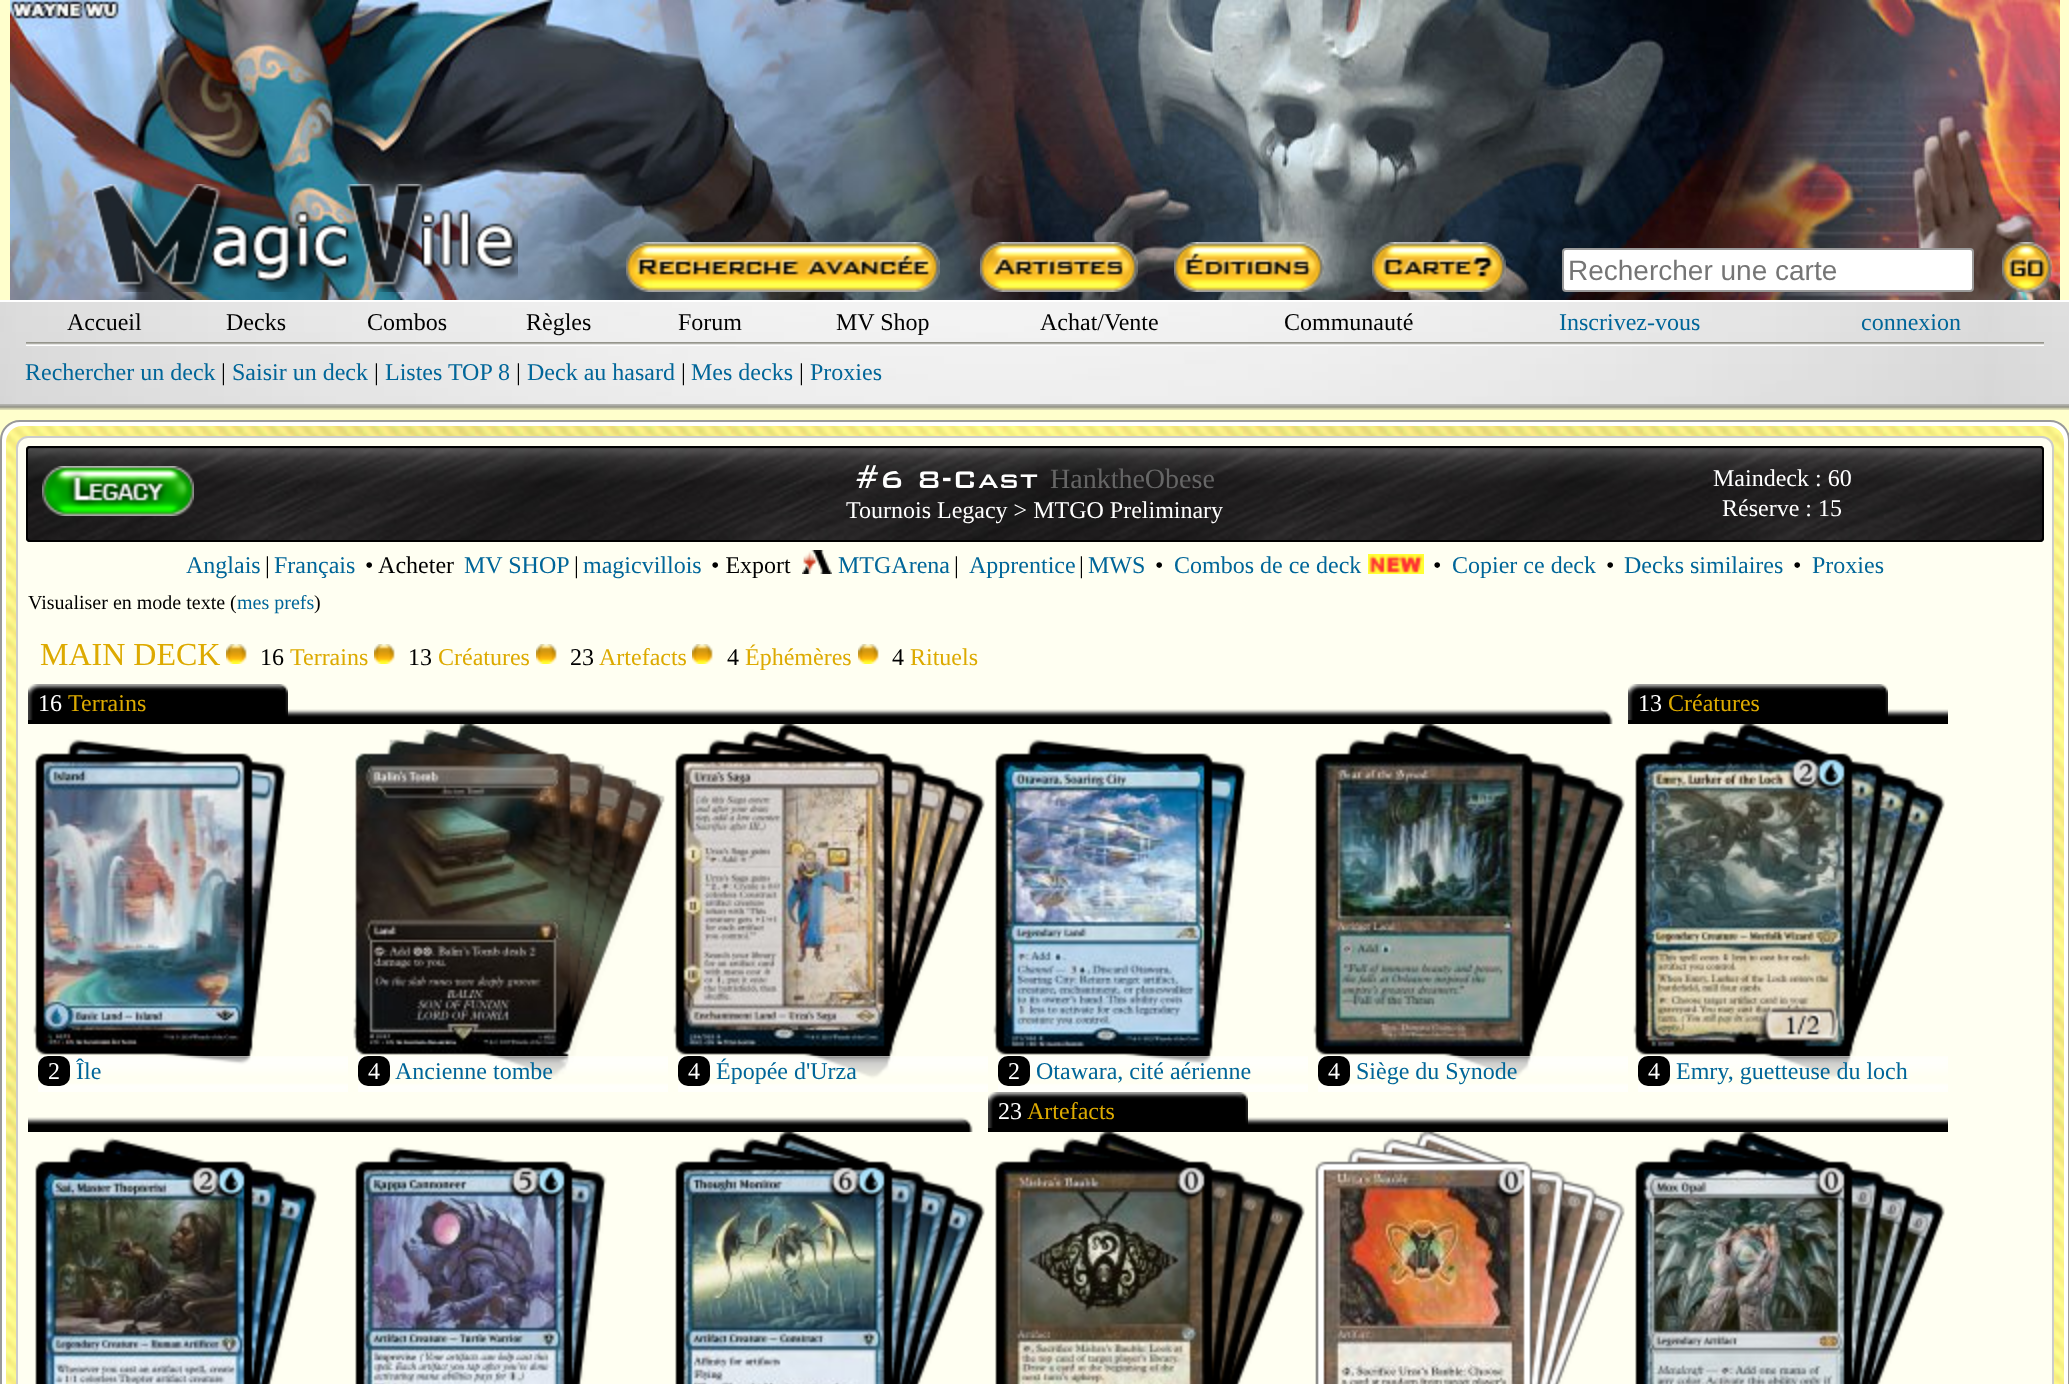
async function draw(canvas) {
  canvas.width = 2069;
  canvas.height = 1384;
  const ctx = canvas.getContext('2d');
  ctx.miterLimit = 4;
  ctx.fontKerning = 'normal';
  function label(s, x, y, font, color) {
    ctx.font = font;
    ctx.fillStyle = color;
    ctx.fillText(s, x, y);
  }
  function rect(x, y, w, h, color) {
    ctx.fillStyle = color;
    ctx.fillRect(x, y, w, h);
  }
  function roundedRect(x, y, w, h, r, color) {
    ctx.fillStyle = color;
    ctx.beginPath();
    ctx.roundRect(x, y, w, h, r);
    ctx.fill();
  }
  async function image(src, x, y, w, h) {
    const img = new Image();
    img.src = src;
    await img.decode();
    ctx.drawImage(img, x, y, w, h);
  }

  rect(0, 0, 2069, 1384, '#ffc');
  await image('assets/img1.png', 10, 0, 2050, 300);
  await image('assets/img2.png', 92, 184, 426, 108);
  await image('assets/img3.png', 626, 242, 314, 50);
  await image('assets/img4.png', 980, 242, 158, 50);
  await image('assets/img5.png', 1174, 242, 150, 50);
  await image('assets/img6.png', 1372, 242, 134, 50);
  ctx.fillStyle = '#fff';
  ctx.beginPath();
  ctx.roundRect(1563, 249, 410, 42, 3);
  ctx.fill();
  ctx.strokeStyle = '#999';
  ctx.lineWidth = 2;
  ctx.stroke();
  label('Rechercher une carte', 1568, 280, '28px Liberation Sans', '#757575');
  await image('assets/img7.png', 2002, 242, 50, 50);
  await image('assets/img8.png', 0, 302, 2069, 102);
  rect(0, 300, 2069, 2, '#fff');
  await image('assets/img9.png', 0, 404, 2069, 6);
  label('Accueil', 67, 330, '24px Liberation Serif', '#000');
  label('Decks', 226, 330, '24px Liberation Serif', '#000');
  label('Combos', 367, 330, '24px Liberation Serif', '#000');
  label('Règles', 526, 330, '24px Liberation Serif', '#000');
  label('Forum', 678, 330, '24px Liberation Serif', '#000');
  label('MV Shop', 836, 330, '24px Liberation Serif', '#000');
  label('Achat/Vente', 1040, 330, '24px Liberation Serif', '#000');
  label('Communauté', 1284, 330, '24px Liberation Serif', '#000');
  label('Inscrivez-vous', 1559, 330, '24px Liberation Serif', '#069');
  label('connexion', 1861, 330, '24px Liberation Serif', '#069');
  await image('assets/img10.png', 26, 342, 2018, 4);
  label('Rechercher un deck', 25, 380, '24px Liberation Serif', '#069');
  label('|', 221, 380, '24px Liberation Serif', '#000');
  label('Saisir un deck', 232, 380, '24px Liberation Serif', '#069');
  label('|', 374, 380, '24px Liberation Serif', '#000');
  label('Listes TOP 8', 385, 380, '24px Liberation Serif', '#069');
  label('|', 516, 380, '24px Liberation Serif', '#000');
  label('Deck au hasard', 527, 380, '24px Liberation Serif', '#069');
  label('|', 681, 380, '24px Liberation Serif', '#000');
  label('Mes decks', 691, 380, '24px Liberation Serif', '#069');
  label('|', 799, 380, '24px Liberation Serif', '#000');
  label('Proxies', 810, 380, '24px Liberation Serif', '#069');
  ctx.fillStyle = '#fff';
  ctx.beginPath();
  ctx.roundRect(1, 421, 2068, 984, 19);
  ctx.fill();
  ctx.stroke();
  await image('assets/img11.png', 6, 426, 2058, 958);
  ctx.fillStyle = '#fffff2';
  ctx.beginPath();
  ctx.roundRect(17, 437, 2036, 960, 11);
  ctx.fill();
  ctx.strokeStyle = '#ccc';
  ctx.stroke();
  await image('assets/img12.png', 26, 446, 2018, 96);
  ctx.beginPath();
  ctx.roundRect(27, 447, 2016, 94, 3);
  ctx.strokeStyle = '#000';
  ctx.stroke();
  await image('assets/img13.png', 42, 466, 152, 50);
  label('#6 8-Cast', 855, 488, '500 32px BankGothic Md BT', '#fff');
  label('HanktheObese', 1050, 488, '28px Liberation Serif', '#666');
  label('Tournois Legacy > MTGO Preliminary', 846, 518, '24px Liberation Serif', '#fff');
  label('Maindeck : 60', 1713, 486, '24px Liberation Serif', '#fff');
  label('Réserve : 15', 1722, 516, '24px Liberation Serif', '#fff');
  label('Anglais', 186, 573, '24px Liberation Serif', '#069');
  label('|', 265, 573, '24px Liberation Serif', '#000');
  label('Français', 274, 573, '24px Liberation Serif', '#069');
  label('• Acheter', 365, 573, '24px Liberation Serif', '#000');
  label('MV SHOP', 464, 573, '24px Liberation Serif', '#069');
  label('|', 574, 573, '24px Liberation Serif', '#000');
  label('magicvillois', 583, 573, '24px Liberation Serif', '#069');
  label('• Export', 711, 573, '24px Liberation Serif', '#000');
  await image('assets/img14.png', 802, 550, 30, 24);
  label('MTGArena', 838, 573, '24px Liberation Serif', '#069');
  label('|', 954, 573, '24px Liberation Serif', '#000');
  label('Apprentice', 969, 573, '24px Liberation Serif', '#069');
  label('|', 1079, 573, '24px Liberation Serif', '#000');
  label('MWS', 1088, 573, '24px Liberation Serif', '#069');
  label('•', 1155, 573, '24px Liberation Serif', '#000');
  label('Combos de ce deck', 1174, 573, '24px Liberation Serif', '#069');
  await image('assets/img15.png', 1368, 554, 56, 20);
  label('•', 1433, 573, '24px Liberation Serif', '#000');
  label('Copier ce deck', 1452, 573, '24px Liberation Serif', '#069');
  label('•', 1606, 573, '24px Liberation Serif', '#000');
  label('Decks similaires', 1624, 573, '24px Liberation Serif', '#069');
  label('•', 1793, 573, '24px Liberation Serif', '#000');
  label('Proxies', 1812, 573, '24px Liberation Serif', '#069');
  label('Visualiser en mode texte (', 28, 609, '20px Liberation Serif', '#000');
  label('mes prefs', 237, 609, '20px Liberation Serif', '#069');
  label(')', 314, 609, '20px Liberation Serif', '#000');
  label('MAIN DECK', 40, 665, '32px Liberation Serif', '#da0');
  await image('assets/img16.png', 226, 644, 21, 20);
  label('16', 260, 665, '24px Liberation Serif', '#000');
  label('Terrains', 290, 665, '24px Liberation Serif', '#da0');
  await image('assets/img16.png', 374, 644, 21, 20);
  label('13', 408, 665, '24px Liberation Serif', '#000');
  label('Créatures', 438, 665, '24px Liberation Serif', '#da0');
  await image('assets/img16.png', 536, 644, 21, 20);
  label('23', 570, 665, '24px Liberation Serif', '#000');
  label('Artefacts', 599, 665, '24px Liberation Serif', '#da0');
  await image('assets/img16.png', 692, 644, 21, 20);
  label('4', 727, 665, '24px Liberation Serif', '#000');
  label('Éphémères', 745, 665, '24px Liberation Serif', '#da0');
  await image('assets/img16.png', 858, 644, 21, 20);
  label('4', 892, 665, '24px Liberation Serif', '#000');
  label('Rituels', 910, 665, '24px Liberation Serif', '#da0');
  await image('assets/img17.png', 28, 709, 320, 15);
  await image('assets/img18.png', 28, 684, 260, 36);
  label('16', 38, 711, '24px Liberation Serif', '#fff');
  label('Terrains', 68, 711, '24px Liberation Serif', '#da0');
  await image('assets/img19.png', 33, 739, 254, 326);
  await image('assets/img20.png', 38, 1056, 310, 36);
  roundedRect(38, 1056, 32, 30, 10, '#000');
  label('2', 48, 1079, '24px Liberation Serif', '#fff');
  label('Île', 76, 1079, '24px Liberation Serif', '#069');
  await image('assets/img17.png', 348, 709, 320, 15);
  await image('assets/img21.png', 353, 724, 312, 357);
  await image('assets/img22.png', 358, 1056, 310, 36);
  roundedRect(358, 1056, 32, 30, 10, '#000');
  label('4', 368, 1079, '24px Liberation Serif', '#fff');
  label('Ancienne tombe', 395, 1079, '24px Liberation Serif', '#069');
  await image('assets/img17.png', 668, 709, 320, 15);
  await image('assets/img23.png', 673, 724, 312, 356);
  await image('assets/img24.png', 678, 1056, 310, 36);
  roundedRect(678, 1056, 32, 30, 10, '#000');
  label('4', 688, 1079, '24px Liberation Serif', '#fff');
  label('Épopée d\'Urza', 716, 1079, '24px Liberation Serif', '#069');
  await image('assets/img17.png', 988, 709, 320, 15);
  await image('assets/img25.png', 993, 739, 254, 326);
  await image('assets/img20.png', 998, 1056, 310, 36);
  roundedRect(998, 1056, 32, 30, 10, '#000');
  label('2', 1008, 1079, '24px Liberation Serif', '#fff');
  label('Otawara, cité aérienne', 1036, 1079, '24px Liberation Serif', '#069');
  await image('assets/img26.png', 1308, 709, 305, 15);
  await image('assets/img27.png', 1313, 724, 312, 356);
  await image('assets/img28.png', 1318, 1056, 310, 36);
  roundedRect(1318, 1056, 32, 30, 10, '#000');
  label('4', 1328, 1079, '24px Liberation Serif', '#fff');
  label('Siège du Synode', 1356, 1079, '24px Liberation Serif', '#069');
  await image('assets/img17.png', 1628, 709, 320, 15);
  await image('assets/img18.png', 1628, 684, 260, 36);
  label('13', 1638, 711, '24px Liberation Serif', '#fff');
  label('Créatures', 1668, 711, '24px Liberation Serif', '#da0');
  await image('assets/img29.png', 1633, 724, 312, 356);
  await image('assets/img30.png', 1638, 1056, 310, 36);
  roundedRect(1638, 1056, 32, 30, 10, '#000');
  label('4', 1648, 1079, '24px Liberation Serif', '#fff');
  label('Emry, guetteuse du loch', 1676, 1079, '24px Liberation Serif', '#069');
  await image('assets/img17.png', 988, 1117, 320, 15);
  await image('assets/img18.png', 988, 1092, 260, 36);
  label('23', 998, 1119, '24px Liberation Serif', '#fff');
  label('Artefacts', 1027, 1119, '24px Liberation Serif', '#da0');
  await image('assets/img31.png', 995, 1132, 310, 252);
  await image('assets/img17.png', 28, 1117, 320, 15);
  await image('assets/img32.png', 35, 1137, 282, 247);
  await image('assets/img17.png', 348, 1117, 320, 15);
  await image('assets/img33.png', 355, 1147, 252, 237);
  await image('assets/img26.png', 668, 1117, 305, 15);
  await image('assets/img34.png', 675, 1132, 310, 252);
  await image('assets/img17.png', 1308, 1117, 320, 15);
  await image('assets/img35.png', 1315, 1132, 310, 252);
  await image('assets/img17.png', 1628, 1117, 320, 15);
  await image('assets/img36.png', 1635, 1132, 310, 252);
}

draw(document.querySelector('canvas'));
